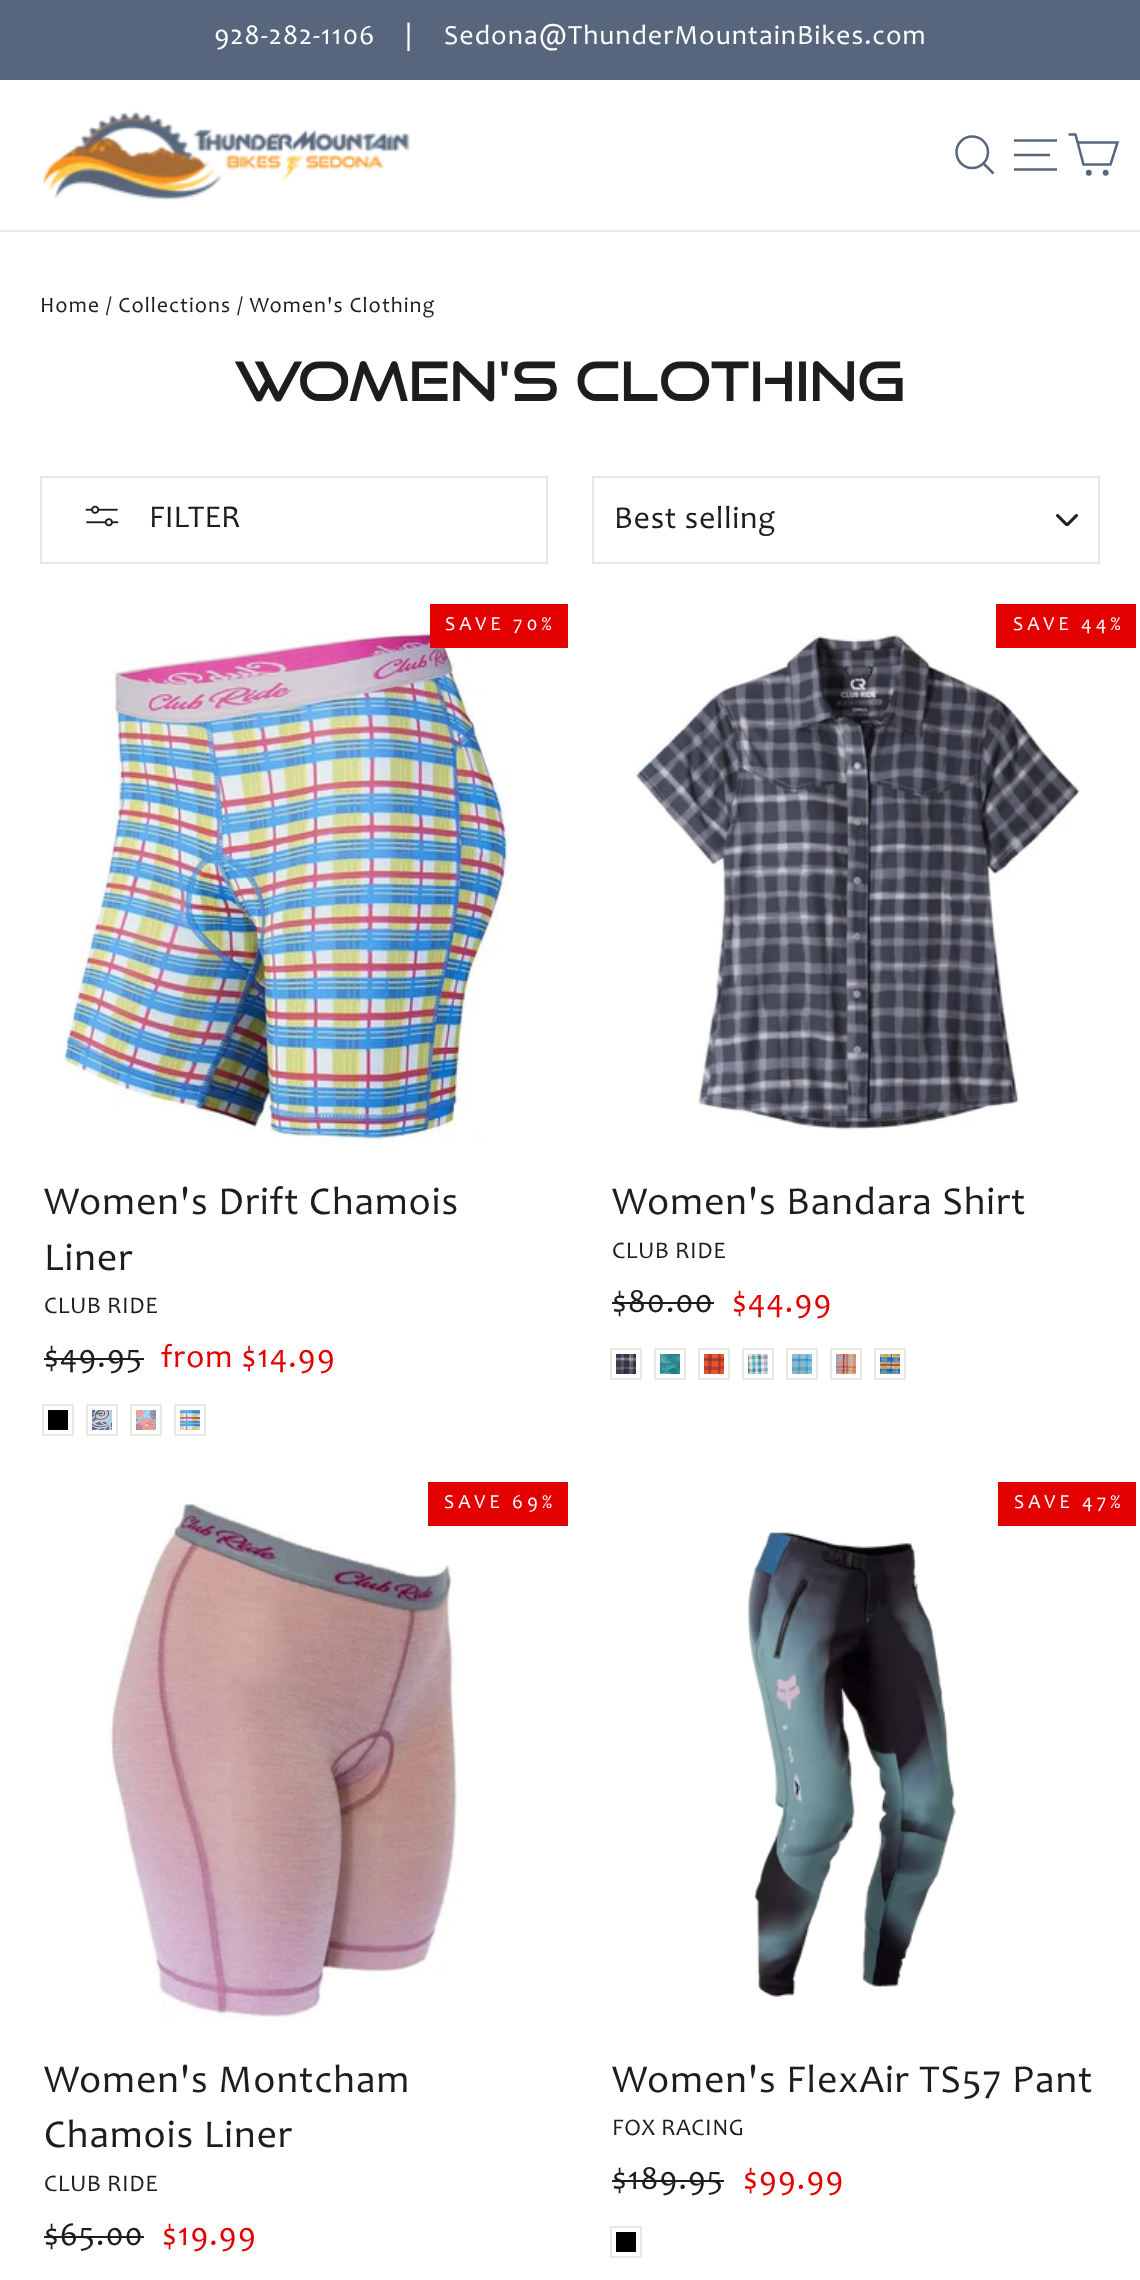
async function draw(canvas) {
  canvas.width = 1140;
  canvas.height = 2280;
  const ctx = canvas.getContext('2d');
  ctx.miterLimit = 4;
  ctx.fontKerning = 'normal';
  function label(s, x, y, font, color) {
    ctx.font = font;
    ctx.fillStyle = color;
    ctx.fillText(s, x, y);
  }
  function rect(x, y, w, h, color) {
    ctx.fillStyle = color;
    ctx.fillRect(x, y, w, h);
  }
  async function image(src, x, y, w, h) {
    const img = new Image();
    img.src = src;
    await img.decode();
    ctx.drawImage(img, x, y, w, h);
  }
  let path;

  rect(0, 0, 1140, 2280, '#fff');
  rect(0, 230, 1140, 2, '#e8e8e1');
  rect(0, 0, 1140, 80, '#58667d');
  ctx.letterSpacing = '1px';
  label('928-282-1106', 214, 44, '28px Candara', '#fff');
  label('|', 405, 44, '28px Candara', '#fff');
  label('Sedona@ThunderMountainBikes.com', 444, 44, '28px Candara', '#fff');
  await image('assets/img1.png', 41, 111, 369, 89);
  path = new Path2D('M988 152C988 161 981 168 972 168C963.5 168 956.5 161 956.5 152C956.5 143.5 963.5 136.5 972 136.5C981 136.5 988 143.5 988 152ZM993.5 173.5L983.5 163.5');
  ctx.strokeStyle = '#58667d';
  ctx.lineWidth = 2.5;
  ctx.stroke(path);
  path = new Path2D('M1014 140.5H1057M1014 155H1050M1014 169.5H1057');
  ctx.stroke(path);
  path = new Path2D('M1078 142.5H1117.5L1110.5 164.5H1083.5L1075.5 134.5H1068.5');
  ctx.stroke(path);
  ctx.fillStyle = '#58667d';
  ctx.beginPath();
  ctx.arc(1088.8, 172.7, 1.7, 0, 2 * Math.PI);
  ctx.fill();
  ctx.stroke();
  ctx.beginPath();
  ctx.arc(1105.7, 172.7, 1.7, 0, 2 * Math.PI);
  ctx.fill();
  ctx.stroke();
  label('Home / Collections / Women\'s Clothing', 40, 312, '22px Candara', '#1c1d1d');
  ctx.letterSpacing = '0px';
  label('WOMEN\'S CLOTHING', 234, 401, '54.4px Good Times', '#1c1d1d');
  ctx.strokeStyle = '#e8e8e1';
  ctx.lineWidth = 2;
  ctx.strokeRect(41, 477, 506, 86);
  await image('assets/img2.png', 85, 505, 34, 22);
  label('FILTER', 149, 527, '32px Candara', '#1c1d1d');
  await image('assets/img3.png', 1056, 514, 22, 12);
  ctx.strokeRect(593, 477, 506, 86);
  ctx.letterSpacing = '0.75px';
  label('Best selling', 614, 528, '32px Candara', '#1c1d1d');
  await image('assets/img4.png', 62, 631, 448, 513);
  rect(430, 604, 138, 44, '#e20000');
  ctx.letterSpacing = '4px';
  label('SAVE 70%', 445, 630, '20px Candara', '#fff');
  ctx.letterSpacing = '1px';
  label('Women\'s Drift Chamois', 44, 1214, '39.8px Candara', '#1c1d1d');
  label('Liner', 44, 1270, '39.8px Candara', '#1c1d1d');
  ctx.letterSpacing = '0.5px';
  label('CLUB RIDE', 44, 1313, '24px Candara', '#1c1d1d');
  ctx.letterSpacing = '1px';
  label('$49.95', 44, 1367, '33px Candara', '#1c1d1d');
  rect(44, 1358, 100, 2, '#1c1d1d');
  label('from $14.99', 161, 1367, '33px Candara', '#e20000');
  ctx.strokeRect(43, 1405, 30, 30);
  rect(48, 1410, 20, 20, '#000');
  ctx.strokeRect(87, 1405, 30, 30);
  await image('assets/img5.png', 92, 1410, 20, 20);
  ctx.strokeRect(131, 1405, 30, 30);
  await image('assets/img6.png', 136, 1410, 20, 20);
  ctx.strokeRect(175, 1405, 30, 30);
  await image('assets/img7.png', 180, 1410, 20, 20);
  await image('assets/img8.png', 636, 632, 444, 498);
  rect(996, 604, 140, 44, '#e20000');
  ctx.letterSpacing = '4px';
  label('SAVE 44%', 1013, 630, '20px Candara', '#fff');
  ctx.letterSpacing = '1px';
  label('Women\'s Bandara Shirt', 612, 1214, '39.8px Candara', '#1c1d1d');
  ctx.letterSpacing = '0.5px';
  label('CLUB RIDE', 612, 1258, '24px Candara', '#1c1d1d');
  ctx.letterSpacing = '1px';
  label('$80.00', 612, 1312, '33px Candara', '#1c1d1d');
  rect(612, 1302, 102, 2, '#1c1d1d');
  label('$44.99', 732, 1312, '33px Candara', '#e20000');
  ctx.strokeRect(611, 1349, 30, 30);
  await image('assets/img9.png', 616, 1354, 20, 20);
  ctx.strokeRect(655, 1349, 30, 30);
  await image('assets/img10.png', 660, 1354, 20, 20);
  ctx.strokeRect(699, 1349, 30, 30);
  await image('assets/img11.png', 704, 1354, 20, 20);
  ctx.strokeRect(743, 1349, 30, 30);
  await image('assets/img12.png', 748, 1354, 20, 20);
  ctx.strokeRect(787, 1349, 30, 30);
  await image('assets/img13.png', 792, 1354, 20, 20);
  ctx.strokeRect(831, 1349, 30, 30);
  await image('assets/img14.png', 836, 1354, 20, 20);
  ctx.strokeRect(875, 1349, 30, 30);
  await image('assets/img15.png', 880, 1354, 20, 20);
  await image('assets/img16.png', 107, 1503, 355, 519);
  rect(428, 1482, 140, 44, '#e20000');
  ctx.letterSpacing = '4px';
  label('SAVE 69%', 444, 1508, '20px Candara', '#fff');
  ctx.letterSpacing = '1px';
  label('Women\'s Montcham', 44, 2092, '39.8px Candara', '#1c1d1d');
  label('Chamois Liner', 44, 2147, '39.8px Candara', '#1c1d1d');
  ctx.letterSpacing = '0.5px';
  label('CLUB RIDE', 44, 2191, '24px Candara', '#1c1d1d');
  ctx.letterSpacing = '1px';
  label('$65.00', 44, 2245, '33px Candara', '#1c1d1d');
  rect(44, 2236, 100, 2, '#1c1d1d');
  label('$19.99', 162, 2245, '33px Candara', '#e20000');
  rect(998, 1482, 138, 44, '#e20000');
  ctx.letterSpacing = '4px';
  label('SAVE 47%', 1014, 1508, '20px Candara', '#fff');
  await image('assets/img17.png', 748, 1531, 208, 466);
  ctx.letterSpacing = '1px';
  label('Women\'s FlexAir TS57 Pant', 612, 2092, '39.8px Candara', '#1c1d1d');
  ctx.letterSpacing = '0.5px';
  label('FOX RACING', 612, 2135, '24px Candara', '#1c1d1d');
  ctx.letterSpacing = '1px';
  label('$189.95', 612, 2189, '33px Candara', '#1c1d1d');
  rect(612, 2180, 112, 2, '#1c1d1d');
  label('$99.99', 743, 2189, '33px Candara', '#e20000');
  ctx.strokeRect(611, 2227, 30, 30);
  rect(616, 2232, 20, 20, '#000');
}

draw(document.querySelector('canvas'));
